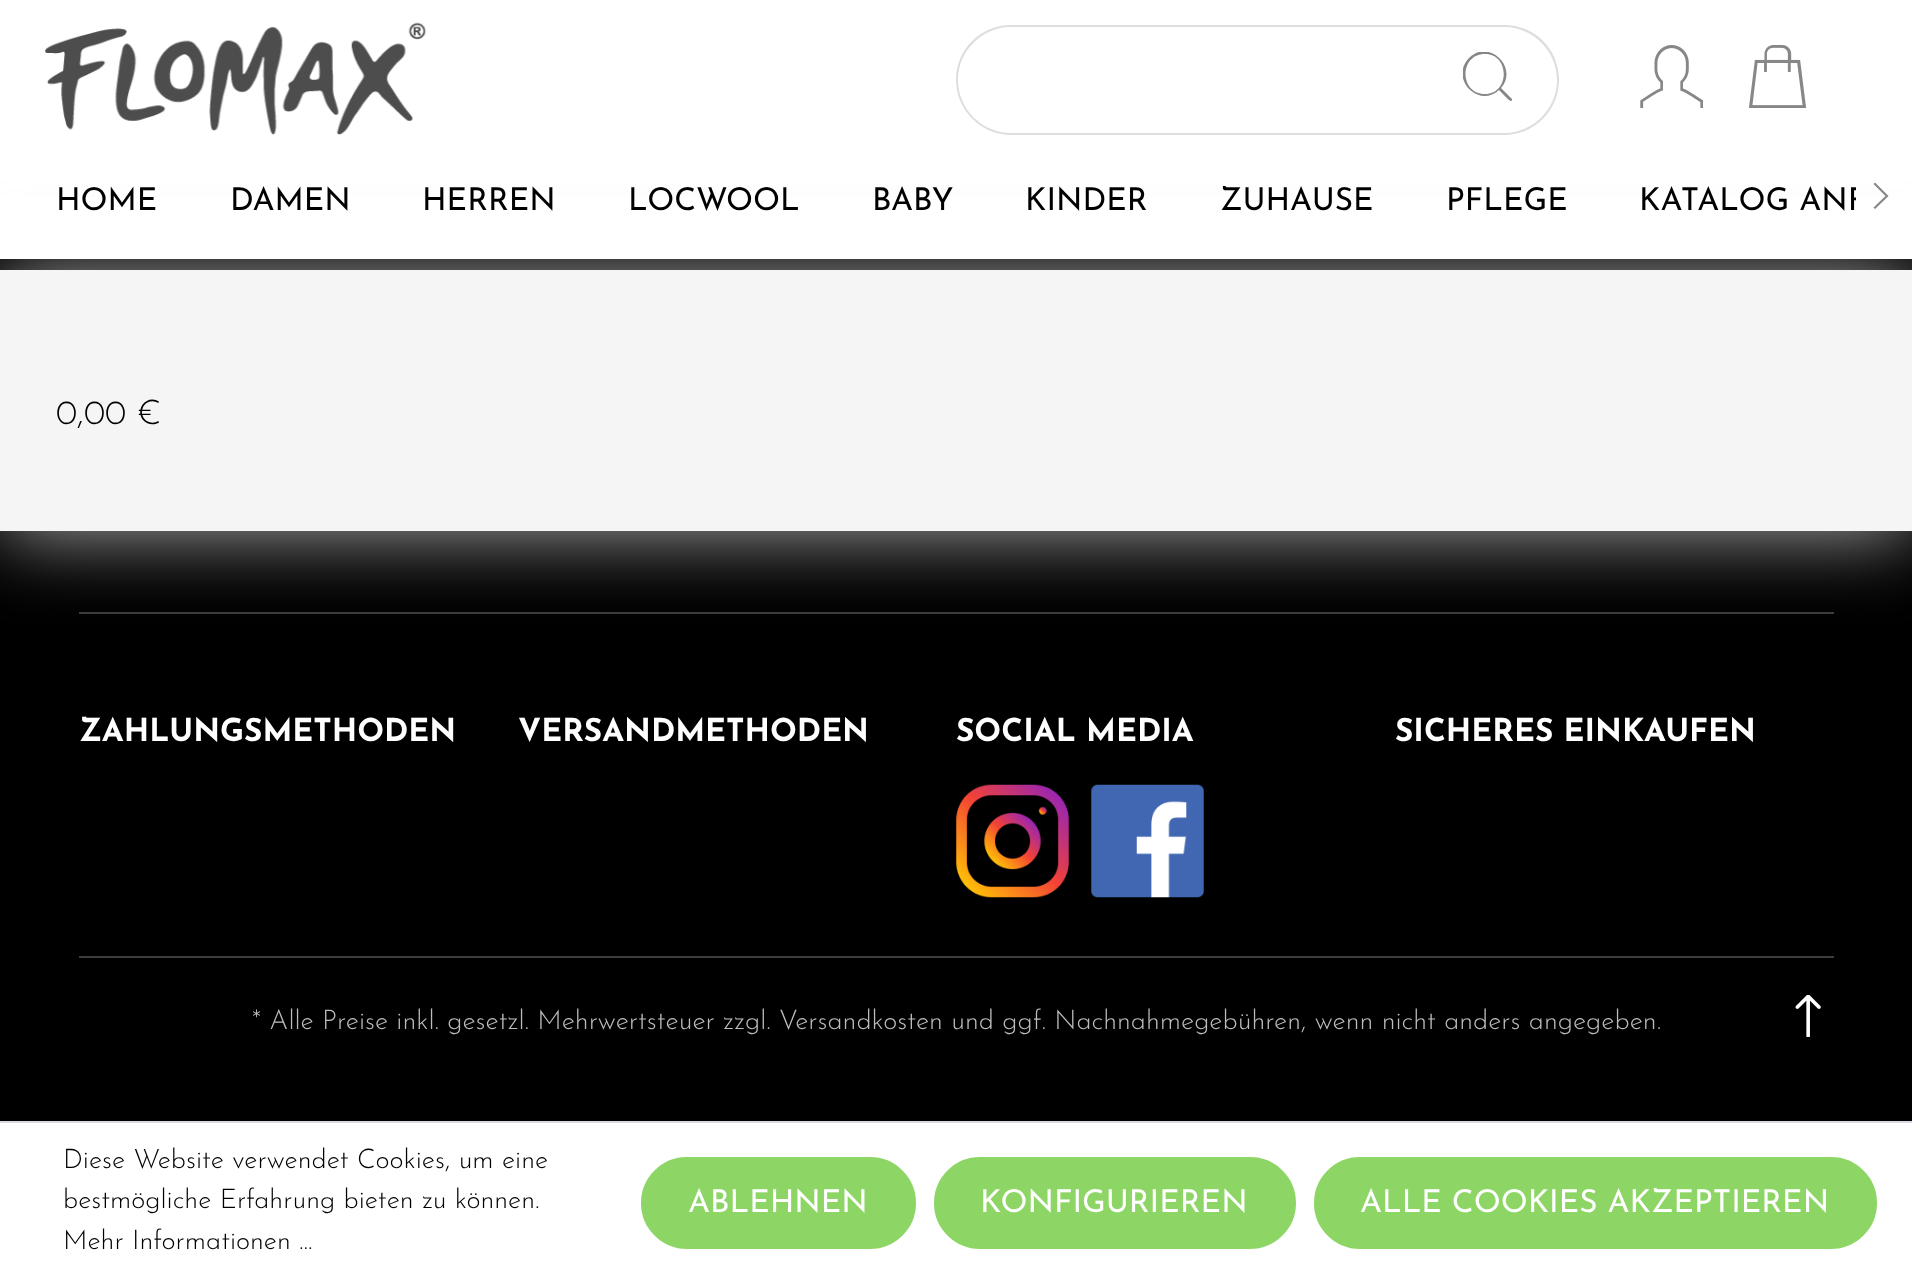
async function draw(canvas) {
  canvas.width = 1912;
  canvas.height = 1279;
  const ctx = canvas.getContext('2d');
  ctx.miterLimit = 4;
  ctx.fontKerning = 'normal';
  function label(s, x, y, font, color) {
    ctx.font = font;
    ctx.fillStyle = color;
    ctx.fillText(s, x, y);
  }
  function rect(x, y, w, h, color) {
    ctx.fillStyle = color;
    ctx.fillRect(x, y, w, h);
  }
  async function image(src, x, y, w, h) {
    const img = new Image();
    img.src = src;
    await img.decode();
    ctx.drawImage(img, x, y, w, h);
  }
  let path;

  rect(0, 0, 1912, 1279, '#fff');
  rect(0, 259, 1912, 862, '#000');
  rect(79, 612, 1755, 2, '#3c3c40');
  ctx.fillStyle = '#a9a9a9';
  ctx.filter = 'blur(39.5px)';
  ctx.beginPath();
  ctx.rect(0, 272, 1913, 261);
  ctx.fill();
  ctx.filter = 'none';
  rect(0, 197, 1912, 62, '#fff');
  await image('assets/img1.png', 45, 22, 381, 113);
  ctx.fillStyle = '#dedede';
  path = new Path2D('M1011 25H1456V135H1011C981 135 956 110 956 80C956 49 981 25 1011 25ZM1011 27H1456V133H1011C982 133 958 109 958 80C958 51 982 27 1011 27Z');
  ctx.fill(path, 'evenodd');
  ctx.fillStyle = '#fff';
  ctx.beginPath();
  ctx.roundRect(1454, 25, 105, 110, [0, 55, 55, 0]);
  ctx.fill();
  ctx.fillStyle = '#dedede';
  path = new Path2D('M1454 25H1504C1535 25 1559 49 1559 80C1559 110 1535 135 1504 135H1454ZM1454 27H1504C1533 27 1557 51 1557 80C1557 109 1533 133 1504 133H1454Z');
  ctx.fill(path, 'evenodd');
  ctx.save();
  ctx.beginPath();
  ctx.rect(1463, 52, 49, 49);
  ctx.clip();
  ctx.fillStyle = '#878787';
  path = new Path2D('M1512 99L1501 88C1519 68 1489 38 1469 58C1449 79 1479 109 1499 90C1501 92 1510 102 1511 101C1512 101 1512 100 1512 99ZM1485 94C1459 94 1459 54 1485 54C1510 54 1510 94 1485 94Z');
  ctx.fill(path, 'evenodd');
  ctx.restore();
  await image('assets/img2.png', 1640, 45, 63, 63);
  await image('assets/img3.png', 1748, 45, 59, 63);
  label('HOME', 56, 210, '31.5px Josefin Sans', '#000');
  label('DAMEN', 230, 210, '31.5px Josefin Sans', '#000');
  label('HERREN', 422, 210, '31.5px Josefin Sans', '#000');
  label('LOCWOOL', 628, 210, '31.5px Josefin Sans', '#000');
  label('BABY', 872, 210, '31.5px Josefin Sans', '#000');
  label('KINDER', 1025, 210, '31.5px Josefin Sans', '#000');
  label('ZUHAUSE', 1220, 210, '31.5px Josefin Sans', '#000');
  label('PFLEGE', 1446, 210, '31.5px Josefin Sans', '#000');
  ctx.save();
  ctx.beginPath();
  ctx.rect(56, 158, 1800, 101);
  ctx.clip();
  label('KATALOG ANF', 1639, 210, '31.5px Josefin Sans', '#000');
  ctx.restore();
  ctx.fillStyle = '#878787';
  path = new Path2D('M1887 197.5L1875 209L1873.5 207.5L1885.5 196L1873.5 184L1875 182.5L1888.5 196Z');
  ctx.fill(path);
  rect(0, 270, 1912, 261, '#f5f5f5');
  label('0,00 €', 56, 424, '300 34px Josefin Sans', '#000');
  rect(79, 956, 1755, 2, '#3c3c40');
  label('ZAHLUNGSMETHODEN', 79, 741, 'bold 31.5px Josefin Sans', '#fff');
  label('VERSANDMETHODEN', 518, 741, 'bold 31.5px Josefin Sans', '#fff');
  label('SOCIAL MEDIA', 956, 741, 'bold 31.5px Josefin Sans', '#fff');
  await image('assets/img4.png', 956, 784, 113, 114);
  await image('assets/img5.png', 1091, 784, 113, 114);
  label('SICHERES EINKAUFEN', 1395, 741, 'bold 31.5px Josefin Sans', '#fff');
  label('* Alle Preise inkl. gesetzl. Mehrwertsteuer zzgl. Versandkosten und ggf. Nachnahmegebühren, wenn nicht anders angegeben.', 252, 1029, '300 27px Josefin Sans', '#bdbdbd');
  await image('assets/img6.png', 1795, 995, 26, 42);
  rect(0, 1121, 1912, 2, '#dadae5');
  label('Diese Website verwendet Cookies, um eine', 63, 1168, '300 27px Josefin Sans', '#000');
  label('bestmögliche Erfahrung bieten zu können.', 63, 1208, '300 27px Josefin Sans', '#000');
  label('Mehr Informationen ...', 63, 1249, '300 27px Josefin Sans', '#000');
  ctx.fillStyle = '#8dd666';
  ctx.beginPath();
  ctx.roundRect(642, 1158, 273, 90, 45);
  ctx.fill();
  ctx.strokeStyle = '#8dd666';
  ctx.lineWidth = 2;
  ctx.stroke();
  label('ABLEHNEN', 688, 1212, '31.5px Josefin Sans', '#fff');
  ctx.fillStyle = '#8dd666';
  ctx.beginPath();
  ctx.roundRect(935, 1158, 360, 90, 45);
  ctx.fill();
  ctx.stroke();
  label('KONFIGURIEREN', 980, 1212, '31.5px Josefin Sans', '#fff');
  ctx.fillStyle = '#8dd666';
  ctx.beginPath();
  ctx.roundRect(1315, 1158, 561, 90, 45);
  ctx.fill();
  ctx.stroke();
  label('ALLE COOKIES AKZEPTIEREN', 1360, 1212, '31.5px Josefin Sans', '#fff');
}

draw(document.querySelector('canvas'));
